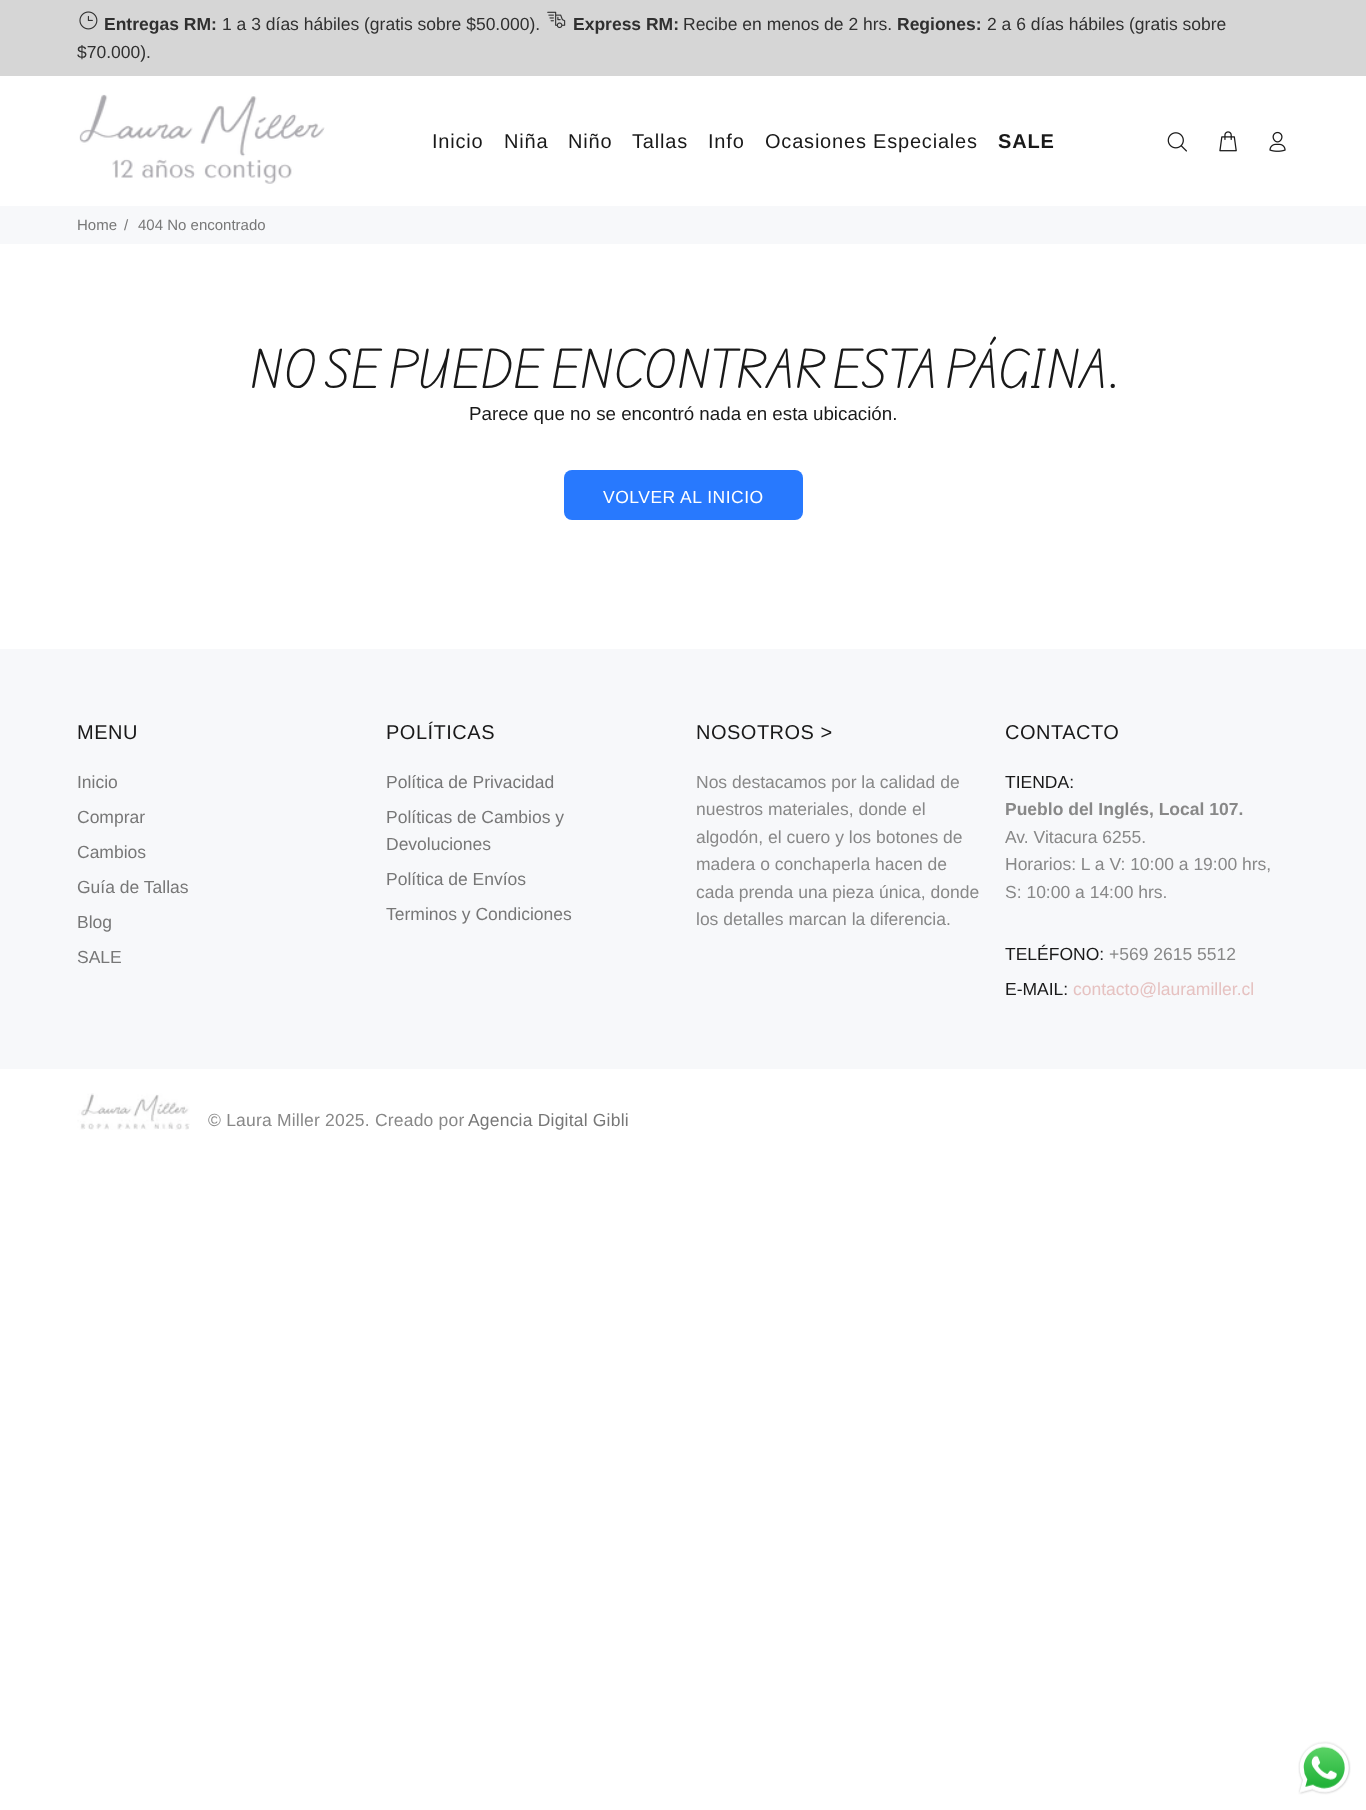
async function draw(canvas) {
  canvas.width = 1366;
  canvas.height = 1810;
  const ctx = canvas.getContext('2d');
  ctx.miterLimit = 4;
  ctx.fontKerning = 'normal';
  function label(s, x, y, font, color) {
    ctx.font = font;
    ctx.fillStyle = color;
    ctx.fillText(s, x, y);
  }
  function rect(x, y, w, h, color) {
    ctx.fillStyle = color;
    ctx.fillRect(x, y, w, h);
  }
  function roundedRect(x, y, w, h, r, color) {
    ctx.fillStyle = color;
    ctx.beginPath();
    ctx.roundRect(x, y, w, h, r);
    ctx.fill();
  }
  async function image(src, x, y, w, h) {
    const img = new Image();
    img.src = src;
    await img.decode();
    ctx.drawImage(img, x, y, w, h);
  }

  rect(0, 0, 1366, 1810, '#fff');
  rect(0, 0, 1366, 76, '#d6d6d6');
  await image('assets/img1.png', 79, 11, 19, 19);
  label('Entregas RM:', 104, 30, 'bold 17.5px Liberation Sans', '#303030');
  label('1 a 3 días hábiles (gratis sobre $50.000).', 222, 30, '17.5px Liberation Sans', '#303030');
  await image('assets/img2.png', 547, 11, 19, 18);
  label('Express RM:', 573, 30, 'bold 17.5px Liberation Sans', '#303030');
  label('Recibe en menos de 2 hrs.', 683, 30, '17.5px Liberation Sans', '#303030');
  label('Regiones:', 897, 30, 'bold 17.5px Liberation Sans', '#303030');
  label('2 a 6 días hábiles (gratis sobre', 987, 30, '17.5px Liberation Sans', '#303030');
  label('$70.000).', 77, 58, '17.5px Liberation Sans', '#303030');
  await image('assets/img3.png', 79, 94, 246, 90);
  ctx.letterSpacing = '0.8px';
  label('Inicio', 432, 148, '20px Liberation Sans', '#191919');
  label('Niña', 504, 148, '20px Liberation Sans', '#191919');
  label('Niño', 568, 148, '20px Liberation Sans', '#191919');
  label('Tallas', 632, 148, '20px Liberation Sans', '#191919');
  label('Info', 708, 148, '20px Liberation Sans', '#191919');
  label('Ocasiones Especiales', 765, 148, '20px Liberation Sans', '#191919');
  label('SALE', 998, 148, 'bold 20px Liberation Sans', '#191919');
  await image('assets/img4.png', 1167, 132, 20, 20);
  await image('assets/img5.png', 1219, 131, 18, 21);
  await image('assets/img6.png', 1269, 131, 17, 21);
  rect(0, 206, 1366, 38, '#f7f8fa');
  ctx.letterSpacing = '0px';
  label('Home', 77, 230, '15px Liberation Sans', '#777');
  label('/', 124, 230, '15px Liberation Sans', '#777');
  label('404 No encontrado', 138, 230, '15px Liberation Sans', '#777');
  label('NO SE PUEDE ENCONTRAR ESTA PÁGINA.', 248, 388, '42.5px Edu AU VIC WA NT Hand', '#191919');
  label('Parece que no se encontró nada en esta ubicación.', 469, 420, '18.75px Liberation Sans', '#191919');
  roundedRect(564, 470, 239, 50, 8, '#2879fe');
  ctx.letterSpacing = '0.5px';
  label('VOLVER AL INICIO', 603, 503, '17.5px Liberation Sans', '#fff');
  rect(0, 649, 1366, 420, '#f7f8fa');
  label('MENU', 77, 739, '20px Liberation Sans', '#191919');
  ctx.letterSpacing = '0px';
  label('Inicio', 77, 788, '17.5px Liberation Sans', '#777');
  label('Comprar', 77, 823, '17.5px Liberation Sans', '#777');
  label('Cambios', 77, 858, '17.5px Liberation Sans', '#777');
  label('Guía de Tallas', 77, 893, '17.5px Liberation Sans', '#777');
  label('Blog', 77, 928, '17.5px Liberation Sans', '#777');
  label('SALE', 77, 963, '17.5px Liberation Sans', '#777');
  ctx.letterSpacing = '0.5px';
  label('POLÍTICAS', 386, 739, '20px Liberation Sans', '#191919');
  ctx.letterSpacing = '0px';
  label('Política de Privacidad', 386, 788, '17.5px Liberation Sans', '#777');
  label('Políticas de Cambios y', 386, 823, '17.5px Liberation Sans', '#777');
  label('Devoluciones', 386, 850, '17.5px Liberation Sans', '#777');
  label('Política de Envíos', 386, 885, '17.5px Liberation Sans', '#777');
  label('Terminos y Condiciones', 386, 920, '17.5px Liberation Sans', '#777');
  ctx.letterSpacing = '0.5px';
  label('NOSOTROS >', 696, 739, '20px Liberation Sans', '#191919');
  ctx.letterSpacing = '0px';
  label('Nos destacamos por la calidad de', 696, 788, '17.5px Liberation Sans', '#888');
  label('nuestros materiales, donde el', 696, 815, '17.5px Liberation Sans', '#888');
  label('algodón, el cuero y los botones de', 696, 843, '17.5px Liberation Sans', '#888');
  label('madera o conchaperla hacen de', 696, 870, '17.5px Liberation Sans', '#888');
  label('cada prenda una pieza única, donde', 696, 898, '17.5px Liberation Sans', '#888');
  label('los detalles marcan la diferencia.', 696, 925, '17.5px Liberation Sans', '#888');
  ctx.letterSpacing = '0.5px';
  label('CONTACTO', 1005, 739, '20px Liberation Sans', '#191919');
  ctx.letterSpacing = '0px';
  label('TIENDA:', 1005, 788, '17.5px Liberation Sans', '#191919');
  label('Pueblo del Inglés, Local 107.', 1005, 815, 'bold 17.5px Liberation Sans', '#888');
  label('Av. Vitacura 6255.', 1005, 843, '17.5px Liberation Sans', '#888');
  label('Horarios: L a V: 10:00 a 19:00 hrs,', 1005, 870, '17.5px Liberation Sans', '#888');
  label('S: 10:00 a 14:00 hrs.', 1005, 898, '17.5px Liberation Sans', '#888');
  label('TELÉFONO:', 1005, 960, '17.5px Liberation Sans', '#191919');
  label('+569 2615 5512', 1109, 960, '17.5px Liberation Sans', '#888');
  label('E-MAIL:', 1005, 995, '17.5px Liberation Sans', '#191919');
  label('contacto@lauramiller.cl', 1073, 995, '17.5px Liberation Sans', '#e6c2c1');
  await image('assets/img7.png', 77, 1093, 113, 37);
  ctx.letterSpacing = '0.2px';
  label('© Laura Miller 2025. Creado por', 208, 1126, '17.5px Liberation Sans', '#888');
  label('Agencia Digital Gibli', 468, 1126, '17.5px Liberation Sans', '#777');
  await image('assets/img8.png', 1298, 1741, 53, 54);
}

draw(document.querySelector('canvas'));
